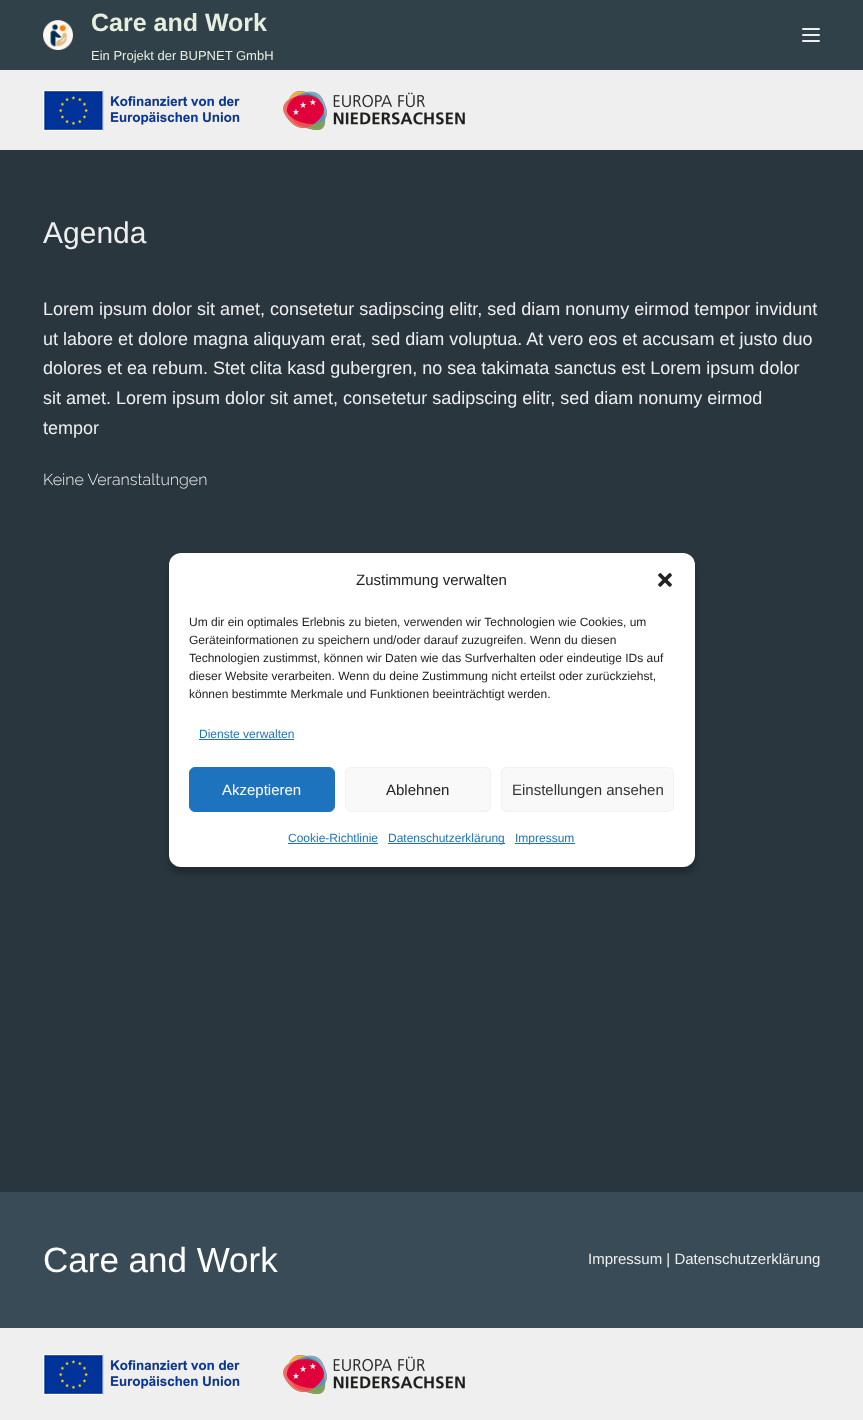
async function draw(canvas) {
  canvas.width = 863;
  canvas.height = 1420;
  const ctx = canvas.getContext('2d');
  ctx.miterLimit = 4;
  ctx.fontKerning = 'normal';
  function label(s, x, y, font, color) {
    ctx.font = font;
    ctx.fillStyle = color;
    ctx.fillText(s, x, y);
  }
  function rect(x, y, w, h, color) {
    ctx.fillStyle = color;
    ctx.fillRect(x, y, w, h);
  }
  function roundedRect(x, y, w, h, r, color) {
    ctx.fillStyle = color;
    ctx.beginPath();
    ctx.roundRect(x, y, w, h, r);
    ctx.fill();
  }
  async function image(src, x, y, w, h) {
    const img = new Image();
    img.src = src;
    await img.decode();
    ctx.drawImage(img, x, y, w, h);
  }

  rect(0, 0, 863, 1420, '#29363d');
  rect(0, 0, 863, 70, '#314149');
  await image('assets/img1.png', 43, 20, 30, 30);
  label('Care and Work', 91, 31, 'bold 25px Liberation Sans', '#e5eedf');
  label('Ein Projekt der BUPNET GmbH', 91, 60, '13px Liberation Sans', '#e5eedf');
  roundedRect(802, 28, 18, 2, 1, '#eee');
  roundedRect(802, 34, 18, 2, 1, '#eee');
  roundedRect(802, 40, 18, 2, 1, '#eee');
  rect(0, 70, 863, 80, '#efefef');
  await image('assets/img2.png', 43, 90, 422, 41);
  label('Agenda', 43, 243, '30px Liberation Sans', '#eee');
  label('Lorem ipsum dolor sit amet, consetetur sadipscing elitr, sed diam nonumy eirmod tempor invidunt', 43, 315, '18px Liberation Sans', '#eee');
  label('ut labore et dolore magna aliquyam erat, sed diam voluptua. At vero eos et accusam et justo duo', 43, 345, '18px Liberation Sans', '#eee');
  label('dolores et ea rebum. Stet clita kasd gubergren, no sea takimata sanctus est Lorem ipsum dolor', 43, 374, '18px Liberation Sans', '#eee');
  label('sit amet. Lorem ipsum dolor sit amet, consetetur sadipscing elitr, sed diam nonumy eirmod', 43, 404, '18px Liberation Sans', '#eee');
  label('tempor', 43, 434, '18px Liberation Sans', '#eee');
  label('Keine Veranstaltungen', 43, 485, '300 16px Raleway', '#eee');
  rect(0, 1192, 863, 136, '#384b56');
  label('Care and Work', 43, 1272, '35px Liberation Sans', '#fff');
  label('Impressum | Datenschutzerklärung', 588, 1264, '15px Liberation Sans', '#eee');
  rect(0, 1328, 863, 92, '#efefef');
  await image('assets/img2.png', 43, 1354, 422, 41);
  ctx.fillStyle = '#0000003b';
  ctx.filter = 'blur(3px)';
  ctx.beginPath();
  ctx.roundRect(169, 559, 526, 314, 12);
  ctx.fill();
  ctx.filter = 'none';
  roundedRect(169, 553, 526, 314, 12, '#fff');
  label('Zustimmung verwalten', 356, 585, '15px Liberation Sans', '#222');
  await image('assets/img3.png', 658, 573, 14, 14);
  label('Um dir ein optimales Erlebnis zu bieten, verwenden wir Technologien wie Cookies, um', 189, 626, '12px Liberation Sans', '#222');
  label('Geräteinformationen zu speichern und/oder darauf zuzugreifen. Wenn du diesen', 189, 644, '12px Liberation Sans', '#222');
  label('Technologien zustimmst, können wir Daten wie das Surfverhalten oder eindeutige IDs auf', 189, 662, '12px Liberation Sans', '#222');
  label('dieser Website verarbeiten. Wenn du deine Zustimmung nicht erteilst oder zurückziehst,', 189, 680, '12px Liberation Sans', '#222');
  label('können bestimmte Merkmale und Funktionen beeinträchtigt werden.', 189, 698, '12px Liberation Sans', '#222');
  label('Dienste verwalten', 199, 738, '12px Liberation Sans', '#1e73be');
  rect(199, 739, 95, 1, '#1e73be');
  ctx.beginPath();
  ctx.roundRect(189.5, 767.5, 145, 44, 5.5);
  ctx.fill();
  ctx.strokeStyle = '#1e73be';
  ctx.stroke();
  label('Akzeptieren', 222, 795, '15px Liberation Sans', '#fff');
  ctx.fillStyle = '#f9f9f9';
  ctx.beginPath();
  ctx.roundRect(345.5, 767.5, 145, 44, 5.5);
  ctx.fill();
  ctx.strokeStyle = '#f2f2f2';
  ctx.stroke();
  label('Ablehnen', 386, 795, '15px Liberation Sans', '#222');
  ctx.fillStyle = '#f9f9f9';
  ctx.beginPath();
  ctx.roundRect(501.5, 767.5, 172, 44, 5.5);
  ctx.fill();
  ctx.stroke();
  label('Einstellungen ansehen', 512, 795, '15px Liberation Sans', '#333');
  label('Cookie-Richtlinie', 288, 842, '12px Liberation Sans', '#1e73be');
  rect(288, 843, 90, 1, '#1e73be');
  rect(388, 843, 117, 1, '#1e73be');
  label('Datenschutzerklärung', 388, 842, '12px Liberation Sans', '#1e73be');
  rect(515, 843, 60, 1, '#1e73be');
  label('Impressum', 515, 842, '12px Liberation Sans', '#1e73be');
}

draw(document.querySelector('canvas'));
